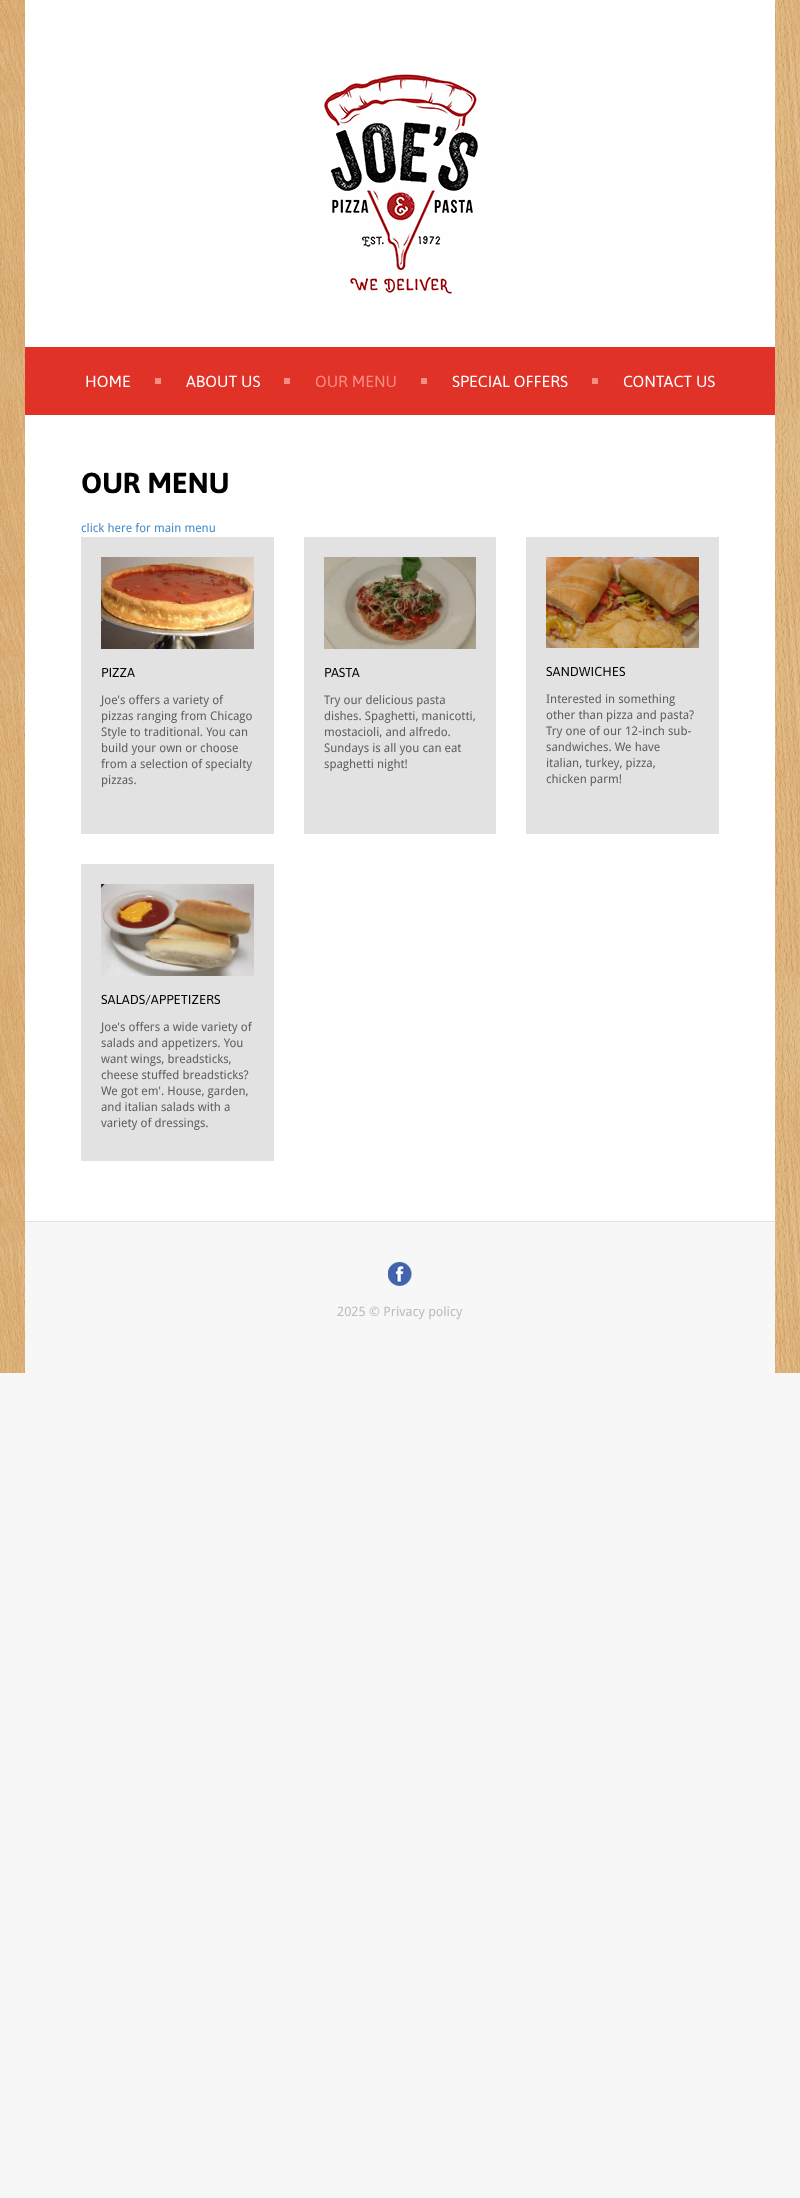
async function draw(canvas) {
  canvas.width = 800;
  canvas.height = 2198;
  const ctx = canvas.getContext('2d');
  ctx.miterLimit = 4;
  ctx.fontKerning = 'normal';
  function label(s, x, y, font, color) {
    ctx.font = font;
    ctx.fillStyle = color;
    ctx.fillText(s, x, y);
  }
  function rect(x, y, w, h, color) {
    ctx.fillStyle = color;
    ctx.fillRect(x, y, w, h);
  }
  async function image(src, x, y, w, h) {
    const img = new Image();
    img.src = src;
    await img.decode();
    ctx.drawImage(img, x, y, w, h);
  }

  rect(0, 0, 800, 2198, '#f7f7f7');
  await image('assets/img1.png', 0, 0, 800, 1373);
  rect(25, 0, 750, 347, '#fff');
  await image('assets/img2.png', 323, 74, 157, 220);
  rect(25, 347, 750, 68, '#e03227');
  label('HOME', 85, 387, '16px Asap', '#fff');
  rect(155, 378, 6, 6, '#f88d86');
  label('ABOUT US', 186, 387, '16px Asap', '#fff');
  rect(284, 378, 6, 6, '#f88d86');
  label('OUR MENU', 315, 387, '16px Asap', '#f88d86');
  rect(421, 378, 6, 6, '#f88d86');
  label('SPECIAL OFFERS', 452, 387, '16px Asap', '#fff');
  rect(592, 378, 6, 6, '#f88d86');
  label('CONTACT US', 623, 387, '16px Asap', '#fff');
  rect(25, 415, 750, 806, '#fff');
  label('OUR MENU', 81, 493, 'bold 29px Asap', '#000');
  label('click here for main menu', 81, 532, '12px Droid Sans', '#428bca');
  rect(81, 537, 193, 297, '#e2e2e2');
  await image('assets/img3.png', 101, 557, 153, 92);
  label('PIZZA', 101, 677, '13px Asap', '#000');
  label('Joe\'s offers a variety of', 101, 704, '12px Droid Sans', '#606060');
  label('pizzas ranging from Chicago', 101, 720, '12px Droid Sans', '#606060');
  label('Style to traditional. You can', 101, 736, '12px Droid Sans', '#606060');
  label('build your own or choose', 101, 752, '12px Droid Sans', '#606060');
  label('from a selection of specialty', 101, 768, '12px Droid Sans', '#606060');
  label('pizzas.', 101, 784, '12px Droid Sans', '#606060');
  rect(304, 537, 192, 297, '#e2e2e2');
  await image('assets/img4.png', 324, 557, 152, 92);
  label('PASTA', 324, 677, '13px Asap', '#000');
  label('Try our delicious pasta', 324, 704, '12px Droid Sans', '#606060');
  label('dishes. Spaghetti, manicotti,', 324, 720, '12px Droid Sans', '#606060');
  label('mostacioli, and alfredo.', 324, 736, '12px Droid Sans', '#606060');
  label('Sundays is all you can eat', 324, 752, '12px Droid Sans', '#606060');
  label('spaghetti night!', 324, 768, '12px Droid Sans', '#606060');
  rect(526, 537, 193, 297, '#e2e2e2');
  await image('assets/img5.png', 546, 557, 153, 91);
  label('SANDWICHES', 546, 676, '13px Asap', '#000');
  label('Interested in something', 546, 703, '12px Droid Sans', '#606060');
  label('other than pizza and pasta?', 546, 719, '12px Droid Sans', '#606060');
  label('Try one of our 12-inch sub-', 546, 735, '12px Droid Sans', '#606060');
  label('sandwiches. We have', 546, 751, '12px Droid Sans', '#606060');
  label('italian, turkey, pizza,', 546, 767, '12px Droid Sans', '#606060');
  label('chicken parm!', 546, 783, '12px Droid Sans', '#606060');
  rect(81, 864, 193, 297, '#e2e2e2');
  await image('assets/img6.png', 101, 884, 153, 92);
  label('SALADS/APPETIZERS', 101, 1004, '13px Asap', '#000');
  label('Joe\'s offers a wide variety of', 101, 1031, '12px Droid Sans', '#606060');
  label('salads and appetizers. You', 101, 1047, '12px Droid Sans', '#606060');
  label('want wings, breadsticks,', 101, 1063, '12px Droid Sans', '#606060');
  label('cheese stuffed breadsticks?', 101, 1079, '12px Droid Sans', '#606060');
  label('We got em\'. House, garden,', 101, 1095, '12px Droid Sans', '#606060');
  label('and italian salads with a', 101, 1111, '12px Droid Sans', '#606060');
  label('variety of dressings.', 101, 1127, '12px Droid Sans', '#606060');
  rect(25, 1222, 750, 151, '#f7f7f7');
  rect(25, 1221, 750, 1, '#e2e2e2');
  await image('assets/img7.png', 388, 1262, 24, 24);
  label('2025 © Privacy policy', 337, 1316, '13px Droid Sans', '#bbbbbc');
}

draw(document.querySelector('canvas'));
